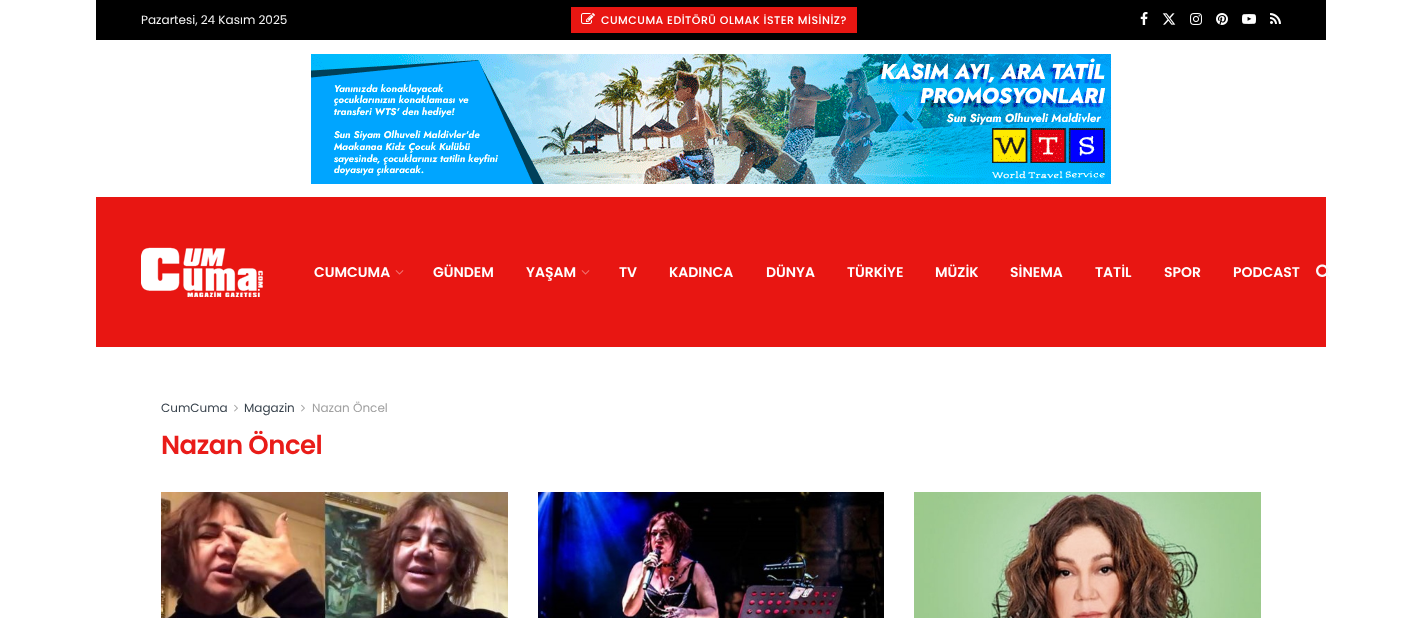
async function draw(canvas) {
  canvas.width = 1422;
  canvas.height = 618;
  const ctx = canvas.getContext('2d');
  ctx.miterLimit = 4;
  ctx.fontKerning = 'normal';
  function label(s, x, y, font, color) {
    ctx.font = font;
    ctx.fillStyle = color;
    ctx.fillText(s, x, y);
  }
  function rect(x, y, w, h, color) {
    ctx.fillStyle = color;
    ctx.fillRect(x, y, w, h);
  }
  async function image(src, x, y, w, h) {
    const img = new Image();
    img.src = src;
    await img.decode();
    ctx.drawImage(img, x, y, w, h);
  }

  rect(0, 0, 1422, 618, '#fff');
  rect(96, 0, 1230, 40, '#000');
  label('Pazartesi, 24 Kasım 2025', 141, 24, '12px Poppins', '#f5f5f5');
  rect(571, 7, 286, 26, '#e81612');
  await image('assets/img1.png', 581, 13, 14, 11);
  ctx.letterSpacing = '0.5px';
  label('CUMCUMA EDİTÖRÜ OLMAK İSTER MİSİNİZ?', 601, 24, '500 11px Poppins', '#fff');
  await image('assets/img2.png', 1140, 12, 8, 13);
  await image('assets/img3.png', 1162, 13, 14, 12);
  await image('assets/img4.png', 1190, 13, 12, 12);
  await image('assets/img5.png', 1216, 13, 12, 12);
  await image('assets/img6.png', 1242, 14, 14, 10);
  await image('assets/img7.png', 1270, 13, 11, 11);
  await image('assets/img8.png', 311, 54, 800, 130);
  rect(96, 197, 1230, 150, '#e81612');
  await image('assets/img9.png', 141, 247, 122, 50);
  ctx.letterSpacing = '0px';
  label('CUMCUMA', 314, 277, '600 14px Poppins', '#fff');
  await image('assets/img10.png', 395, 270, 9, 5);
  label('GÜNDEM', 433, 277, '600 14px Poppins', '#fff');
  label('YAŞAM', 526, 277, '600 14px Poppins', '#fff');
  await image('assets/img10.png', 581, 270, 9, 5);
  label('TV', 619, 277, '600 14px Poppins', '#fff');
  label('KADINCA', 669, 277, '600 14px Poppins', '#fff');
  label('DÜNYA', 766, 277, '600 14px Poppins', '#fff');
  label('TÜRKİYE', 847, 277, '600 14px Poppins', '#fff');
  label('MÜZİK', 935, 277, '600 14px Poppins', '#fff');
  label('SİNEMA', 1010, 277, '600 14px Poppins', '#fff');
  label('TATİL', 1095, 277, '600 14px Poppins', '#fff');
  label('SPOR', 1164, 277, '600 14px Poppins', '#fff');
  label('PODCAST', 1233, 277, '600 14px Poppins', '#fff');
  await image('assets/img11.png', 1316, 264, 14, 15);
  label('CumCuma', 161, 412, '12px Poppins', '#39434d');
  await image('assets/img12.png', 234, 404, 4, 8);
  label('Magazin', 244, 412, '12px Poppins', '#39434d');
  await image('assets/img12.png', 301, 404, 4, 8);
  label('Nazan Öncel', 312, 412, '12px Poppins', '#a0a0a0');
  ctx.letterSpacing = '-0.5px';
  label('Nazan Öncel', 161, 454, '600 26px Poppins', '#e91c19');
  await image('assets/img13.png', 161, 492, 347, 126);
  await image('assets/img14.png', 538, 492, 346, 126);
  await image('assets/img15.png', 914, 492, 347, 126);
}

draw(document.querySelector('canvas'));
